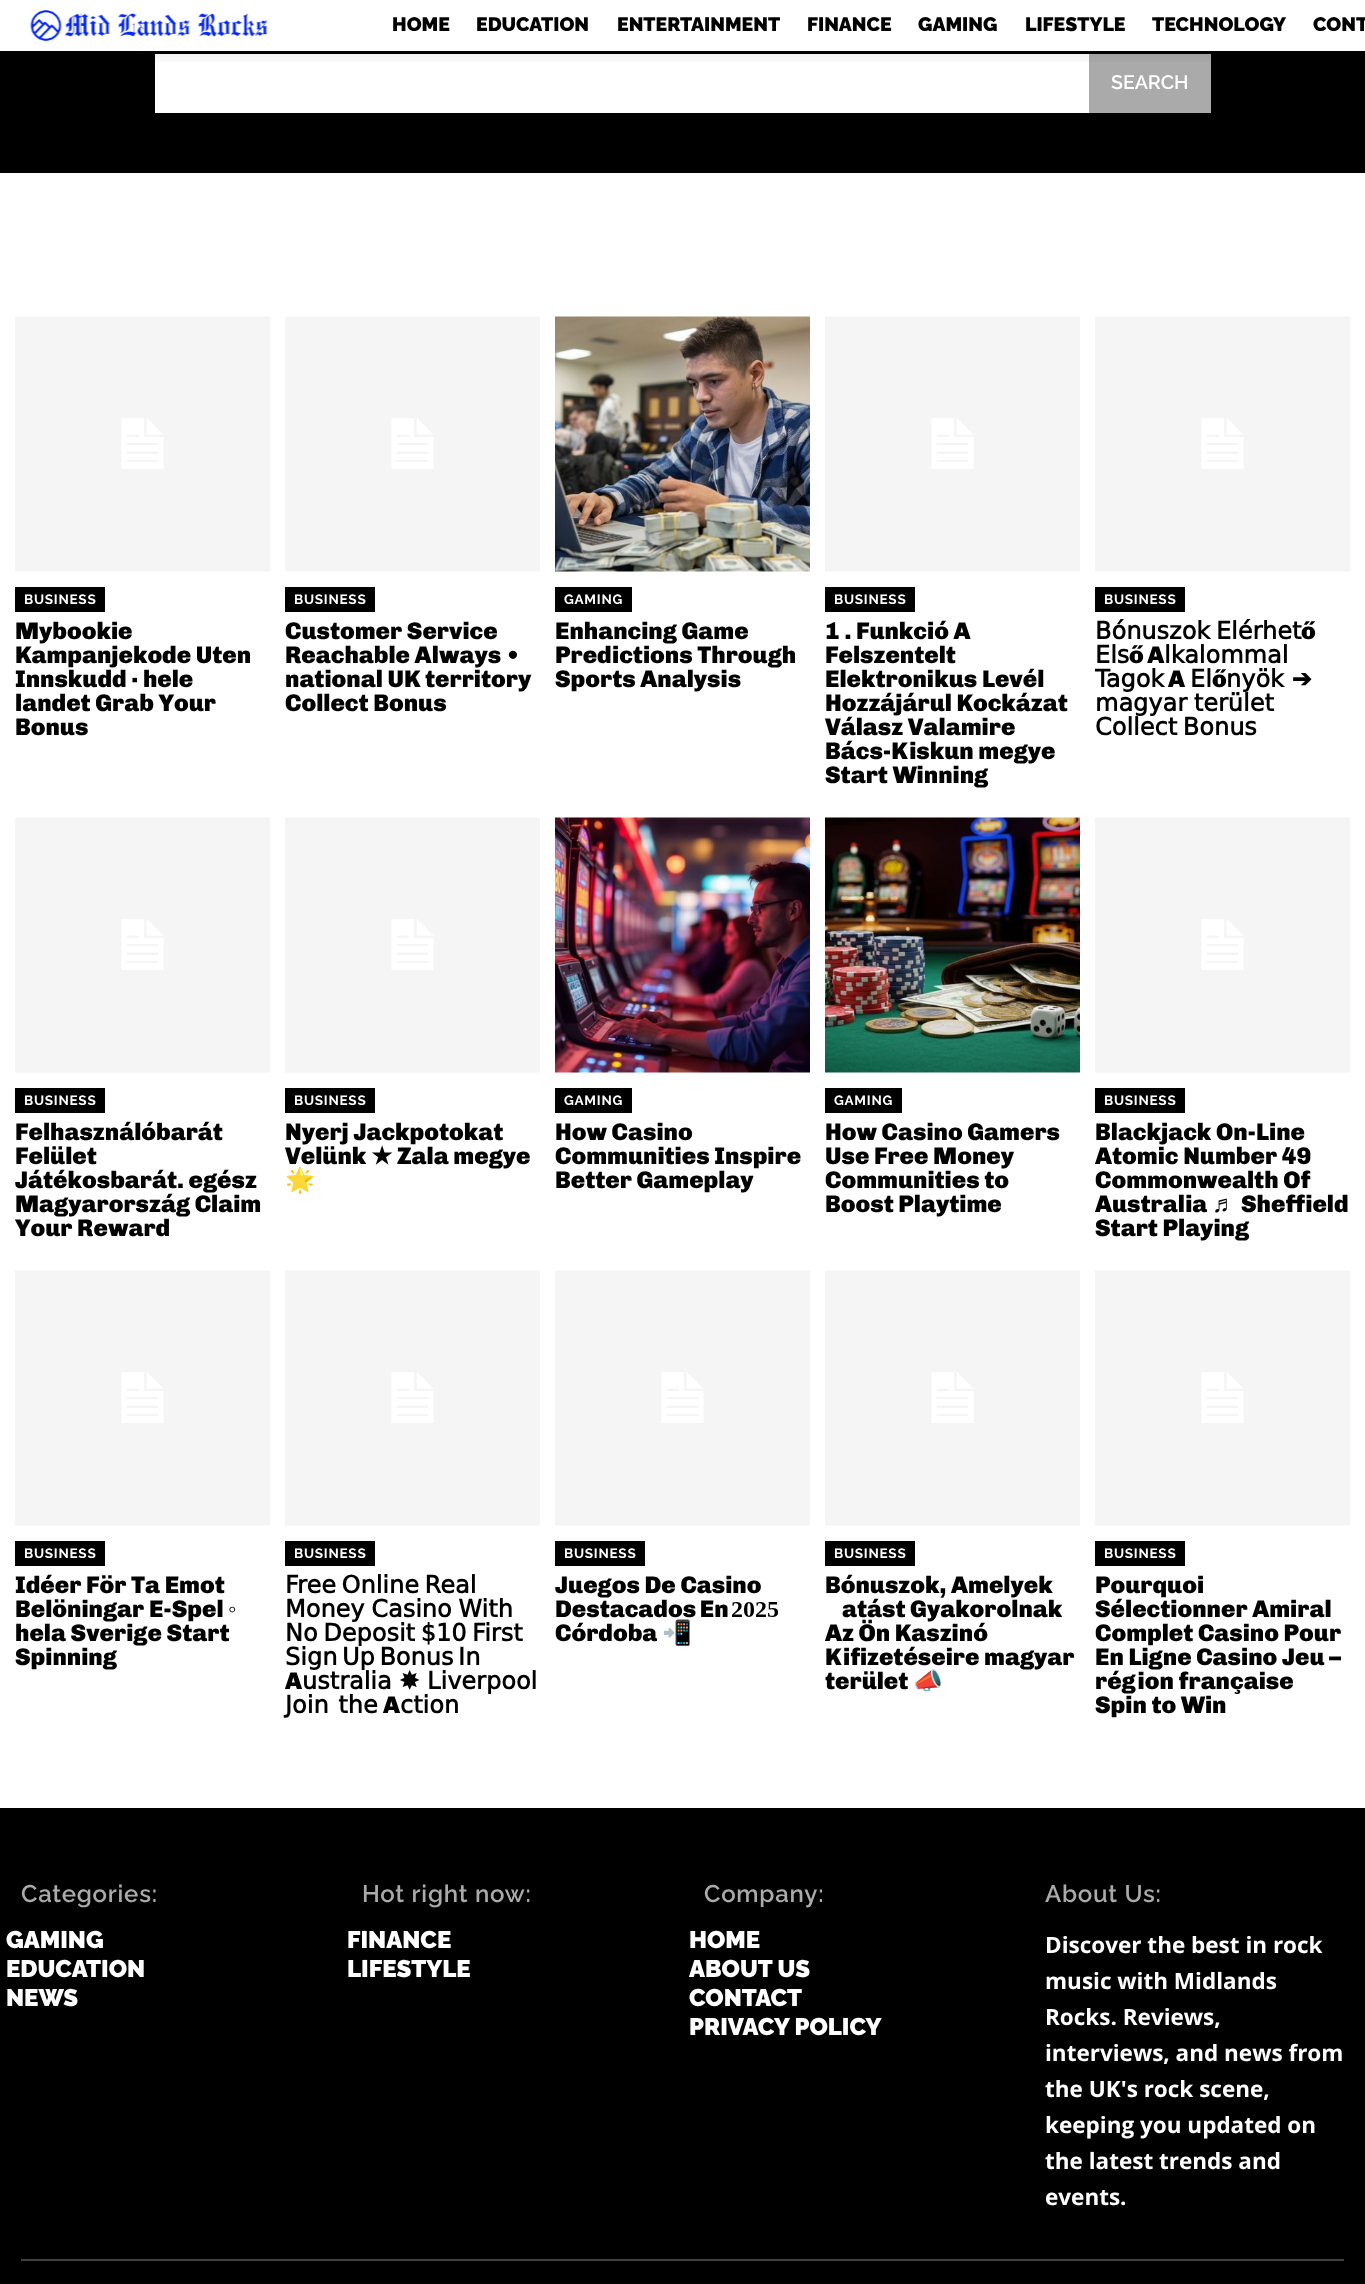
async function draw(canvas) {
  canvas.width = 1365;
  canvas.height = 2284;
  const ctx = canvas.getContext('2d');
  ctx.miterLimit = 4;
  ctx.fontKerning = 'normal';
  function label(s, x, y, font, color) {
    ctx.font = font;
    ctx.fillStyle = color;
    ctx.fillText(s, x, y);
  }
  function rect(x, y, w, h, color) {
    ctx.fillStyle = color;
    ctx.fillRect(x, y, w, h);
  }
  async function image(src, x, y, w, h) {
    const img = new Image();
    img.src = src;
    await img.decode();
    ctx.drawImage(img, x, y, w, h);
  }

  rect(0, 0, 1365, 2284, '#fff');
  await image('assets/img1.png', 30, 10, 238, 31);
  rect(0, 51, 1365, 122, '#000');
  rect(155, 54, 934, 59, '#fff');
  rect(1089, 54, 122, 59, '#aaa');
  ctx.save();
  ctx.beginPath();
  ctx.rect(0, 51, 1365, 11);
  ctx.clip();
  ctx.fillStyle = '#0000001f';
  ctx.filter = 'blur(11px)';
  ctx.beginPath();
  ctx.rect(0, 0, 1365, 51);
  ctx.fill();
  ctx.filter = 'none';
  ctx.restore();
  label('HOME', 392, 31, '900 19.5px Raleway', '#000');
  label('EDUCATION', 476, 31, '900 19.5px Raleway', '#000');
  label('ENTERTAINMENT', 617, 31, '900 19.5px Raleway', '#000');
  label('FINANCE', 807, 31, '900 19.5px Raleway', '#000');
  label('GAMING', 918, 31, '900 19.5px Raleway', '#000');
  label('LIFESTYLE', 1025, 31, '900 19.5px Raleway', '#000');
  label('TECHNOLOGY', 1152, 31, '900 19.5px Raleway', '#000');
  label('CONT', 1313, 31, '900 19.5px Raleway', '#000');
  label('SEARCH', 1111, 89, '600 19.5px Raleway', '#fff');
  await image('assets/img2.png', 15, 316, 255, 256);
  rect(15, 587, 90, 25, '#000');
  ctx.letterSpacing = '0.75px';
  label('BUSINESS', 24, 604, 'bold 13.5px Raleway', '#fff');
  ctx.letterSpacing = '0px';
  label('Mybookie', 15, 639, '900 24px Chivo', '#000');
  label('Kampanjekode Uten', 15, 663, '900 24px Chivo', '#000');
  label('Innskudd · hele', 15, 687, '900 24px Chivo', '#000');
  label('landet Grab Your', 15, 711, '900 24px Chivo', '#000');
  label('Bonus', 15, 735, '900 24px Chivo', '#000');
  await image('assets/img2.png', 285, 316, 255, 256);
  rect(285, 587, 90, 25, '#000');
  ctx.letterSpacing = '0.75px';
  label('BUSINESS', 294, 604, 'bold 13.5px Raleway', '#fff');
  ctx.letterSpacing = '0px';
  label('Customer Service', 285, 639, '900 24px Chivo', '#000');
  label('Reachable Always •', 285, 663, '900 24px Chivo', '#000');
  label('national UK territory', 285, 687, '900 24px Chivo', '#000');
  label('Collect Bonus', 285, 711, '900 24px Chivo', '#000');
  await image('assets/img3.png', 555, 316, 255, 256);
  rect(555, 587, 77, 25, '#000');
  ctx.letterSpacing = '0.75px';
  label('GAMING', 564, 604, 'bold 13.5px Raleway', '#fff');
  ctx.letterSpacing = '0px';
  label('Enhancing Game', 555, 639, '900 24px Chivo', '#000');
  label('Predictions Through', 555, 663, '900 24px Chivo', '#000');
  label('Sports Analysis', 555, 687, '900 24px Chivo', '#000');
  await image('assets/img2.png', 825, 316, 255, 256);
  rect(825, 587, 90, 25, '#000');
  ctx.letterSpacing = '0.75px';
  label('BUSINESS', 834, 604, 'bold 13.5px Raleway', '#fff');
  ctx.letterSpacing = '0px';
  label('1 . Funkció A', 825, 639, '900 24px Chivo', '#000');
  label('Felszentelt', 825, 663, '900 24px Chivo', '#000');
  label('Elektronikus Levél', 825, 687, '900 24px Chivo', '#000');
  label('Hozzájárul Kockázat', 825, 711, '900 24px Chivo', '#000');
  label('Válasz Valamire', 825, 735, '900 24px Chivo', '#000');
  label('Bács-Kiskun megye', 825, 759, '900 24px Chivo', '#000');
  label('Start Winning', 825, 783, '900 24px Chivo', '#000');
  await image('assets/img2.png', 1095, 316, 255, 256);
  rect(1095, 587, 90, 25, '#000');
  ctx.letterSpacing = '0.75px';
  label('BUSINESS', 1104, 604, 'bold 13.5px Raleway', '#fff');
  ctx.letterSpacing = '0px';
  ctx.wordSpacing = '-2px';
  label('Bónuszok Elérhet', 1095, 639, 'bold 24px DejaVu Sans', '#000');
  ctx.wordSpacing = '0px';
  label('ő', 1301, 639, '900 24px Chivo', '#000');
  label('Els', 1095, 663, 'bold 24px DejaVu Sans', '#000');
  ctx.wordSpacing = '-1px';
  label('ő A', 1129, 663, '900 24px Chivo', '#000');
  ctx.wordSpacing = '0px';
  label('lkalommal', 1164, 663, 'bold 24px DejaVu Sans', '#000');
  label('Tagok', 1095, 687, 'bold 24px DejaVu Sans', '#000');
  label('A', 1168, 687, '900 24px Chivo', '#000');
  label('El', 1190, 687, 'bold 24px DejaVu Sans', '#000');
  label('ő', 1212, 687, '900 24px Chivo', '#000');
  label('nyök ➔', 1226, 687, 'bold 24px DejaVu Sans', '#000');
  ctx.wordSpacing = '-1px';
  label('magyar terület', 1095, 711, 'bold 24px DejaVu Sans', '#000');
  ctx.wordSpacing = '-2px';
  label('Collect Bonus', 1095, 735, 'bold 24px DejaVu Sans', '#000');
  await image('assets/img2.png', 15, 817, 255, 256);
  rect(15, 1088, 90, 25, '#000');
  ctx.letterSpacing = '0.75px';
  ctx.wordSpacing = '0px';
  label('BUSINESS', 24, 1105, 'bold 13.5px Raleway', '#fff');
  ctx.letterSpacing = '0px';
  label('Felhasználóbarát', 15, 1140, '900 24px Chivo', '#000');
  label('Felület', 15, 1164, '900 24px Chivo', '#000');
  label('Játékosbarát. egész', 15, 1188, '900 24px Chivo', '#000');
  label('Magyarország Claim', 15, 1212, '900 24px Chivo', '#000');
  label('Your Reward', 15, 1236, '900 24px Chivo', '#000');
  await image('assets/img2.png', 285, 817, 255, 256);
  rect(285, 1088, 90, 25, '#000');
  ctx.letterSpacing = '0.75px';
  label('BUSINESS', 294, 1105, 'bold 13.5px Raleway', '#fff');
  ctx.letterSpacing = '0px';
  label('Nyerj Jackpotokat', 285, 1140, '900 24px Chivo', '#000');
  label('Velünk', 285, 1164, '900 24px Chivo', '#000');
  label('★', 371, 1164, 'bold 24px DejaVu Sans', '#000');
  label('Zala megye', 397, 1164, '900 24px Chivo', '#000');
  label('🌟', 285, 1188, 'bold 24px Noto Color Emoji', '#000');
  await image('assets/img4.png', 555, 817, 255, 256);
  rect(555, 1088, 77, 25, '#000');
  ctx.letterSpacing = '0.75px';
  label('GAMING', 564, 1105, 'bold 13.5px Raleway', '#fff');
  ctx.letterSpacing = '0px';
  label('How Casino', 555, 1140, '900 24px Chivo', '#000');
  label('Communities Inspire', 555, 1164, '900 24px Chivo', '#000');
  label('Better Gameplay', 555, 1188, '900 24px Chivo', '#000');
  await image('assets/img5.png', 825, 817, 255, 256);
  rect(825, 1088, 77, 25, '#000');
  ctx.letterSpacing = '0.75px';
  label('GAMING', 834, 1105, 'bold 13.5px Raleway', '#fff');
  ctx.letterSpacing = '0px';
  label('How Casino Gamers', 825, 1140, '900 24px Chivo', '#000');
  label('Use Free Money', 825, 1164, '900 24px Chivo', '#000');
  label('Communities to', 825, 1188, '900 24px Chivo', '#000');
  label('Boost Playtime', 825, 1212, '900 24px Chivo', '#000');
  await image('assets/img2.png', 1095, 817, 255, 256);
  rect(1095, 1088, 90, 25, '#000');
  ctx.letterSpacing = '0.75px';
  label('BUSINESS', 1104, 1105, 'bold 13.5px Raleway', '#fff');
  ctx.letterSpacing = '0px';
  label('Blackjack On-Line', 1095, 1140, '900 24px Chivo', '#000');
  label('Atomic Number 49', 1095, 1164, '900 24px Chivo', '#000');
  label('Commonwealth Of', 1095, 1188, '900 24px Chivo', '#000');
  label('Australia', 1095, 1212, '900 24px Chivo', '#000');
  label('♬', 1212, 1212, 'bold 24px Liberation Serif', '#000');
  label('Sheffield', 1241, 1212, '900 24px Chivo', '#000');
  label('Start Playing', 1095, 1236, '900 24px Chivo', '#000');
  await image('assets/img2.png', 15, 1270, 255, 256);
  rect(15, 1541, 90, 25, '#000');
  ctx.letterSpacing = '0.75px';
  label('BUSINESS', 24, 1558, 'bold 13.5px Raleway', '#fff');
  ctx.letterSpacing = '0px';
  label('Idéer För Ta Emot', 15, 1593, '900 24px Chivo', '#000');
  label('Belöningar E-Spel', 15, 1617, '900 24px Chivo', '#000');
  label('◦', 228, 1617, 'bold 24px Liberation Serif', '#000');
  label('hela Sverige Start', 15, 1641, '900 24px Chivo', '#000');
  label('Spinning', 15, 1665, '900 24px Chivo', '#000');
  await image('assets/img2.png', 285, 1270, 255, 256);
  rect(285, 1541, 90, 25, '#000');
  ctx.letterSpacing = '0.75px';
  label('BUSINESS', 294, 1558, 'bold 13.5px Raleway', '#fff');
  ctx.letterSpacing = '0px';
  ctx.wordSpacing = '-2px';
  label('Free Online Real', 285, 1593, 'bold 24px DejaVu Sans', '#000');
  ctx.wordSpacing = '-1px';
  label('Money Casino With', 285, 1617, 'bold 24px DejaVu Sans', '#000');
  ctx.wordSpacing = '-2px';
  label('No Deposit $10 First', 285, 1641, 'bold 24px DejaVu Sans', '#000');
  ctx.wordSpacing = '-3px';
  label('Sign Up Bonus In', 285, 1665, 'bold 24px DejaVu Sans', '#000');
  ctx.wordSpacing = '0px';
  label('A', 285, 1689, '900 24px Chivo', '#000');
  label('ustralia ✸ Liverpool', 302, 1689, 'bold 24px DejaVu Sans', '#000');
  ctx.wordSpacing = '2px';
  label('Join the', 285, 1713, 'bold 24px DejaVu Sans', '#000');
  ctx.wordSpacing = '0px';
  label('A', 383, 1713, '900 24px Chivo', '#000');
  label('ction', 400, 1713, 'bold 24px DejaVu Sans', '#000');
  await image('assets/img2.png', 555, 1270, 255, 256);
  rect(555, 1541, 90, 25, '#000');
  ctx.letterSpacing = '0.75px';
  label('BUSINESS', 564, 1558, 'bold 13.5px Raleway', '#fff');
  ctx.letterSpacing = '0px';
  label('Juegos De Casino', 555, 1593, '900 24px Chivo', '#000');
  ctx.wordSpacing = '-1px';
  label('Destacados En', 555, 1617, '900 24px Chivo', '#000');
  ctx.wordSpacing = '0px';
  label('2025', 731, 1617, 'bold 24px "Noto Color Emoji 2"', '#000');
  label('Córdoba', 555, 1641, '900 24px Chivo', '#000');
  label('📲', 662, 1641, 'bold 24px "Noto Color Emoji 2"', '#000');
  await image('assets/img2.png', 825, 1270, 255, 256);
  rect(825, 1541, 90, 25, '#000');
  ctx.letterSpacing = '0.75px';
  label('BUSINESS', 834, 1558, 'bold 13.5px Raleway', '#fff');
  ctx.letterSpacing = '0px';
  label('Bónuszok, Amelyek', 825, 1593, '900 24px Chivo', '#000');
  label('atást Gyakorolnak', 842, 1617, '900 24px Chivo', '#000');
  label('Az Ön Kaszinó', 825, 1641, '900 24px Chivo', '#000');
  label('Kifizetéseire magyar', 825, 1665, '900 24px Chivo', '#000');
  label('terület', 825, 1689, '900 24px Chivo', '#000');
  label('📣', 913, 1689, 'bold 24px "Noto Color Emoji 2"', '#000');
  await image('assets/img2.png', 1095, 1270, 255, 256);
  rect(1095, 1541, 90, 25, '#000');
  ctx.letterSpacing = '0.75px';
  label('BUSINESS', 1104, 1558, 'bold 13.5px Raleway', '#fff');
  ctx.letterSpacing = '0px';
  label('Pourquoi', 1095, 1593, '900 24px Chivo', '#000');
  label('Sélectionner Amiral', 1095, 1617, '900 24px Chivo', '#000');
  label('Complet Casino Pour', 1095, 1641, '900 24px Chivo', '#000');
  label('En Ligne Casino Jeu –', 1095, 1665, '900 24px Chivo', '#000');
  label('région française', 1095, 1689, '900 24px Chivo', '#000');
  label('Spin to Win', 1095, 1713, '900 24px Chivo', '#000');
  rect(0, 1808, 1365, 476, '#000');
  ctx.letterSpacing = '0.75px';
  label('Categories:', 21, 1902, '600 24px Raleway', '#aaa');
  ctx.letterSpacing = '0px';
  label('GAMING', 6, 1948, '900 24px Raleway', '#fff');
  label('EDUCATION', 6, 1977, '900 24px Raleway', '#fff');
  label('NEWS', 6, 2006, '900 24px Raleway', '#fff');
  ctx.letterSpacing = '0.75px';
  label('Hot right now:', 362, 1902, '600 24px Raleway', '#aaa');
  ctx.letterSpacing = '0px';
  label('FINANCE', 347, 1948, '900 24px Raleway', '#fff');
  label('LIFESTYLE', 347, 1977, '900 24px Raleway', '#fff');
  ctx.letterSpacing = '0.75px';
  label('Company:', 704, 1902, '600 24px Raleway', '#aaa');
  ctx.letterSpacing = '0px';
  label('HOME', 689, 1948, '900 24px Raleway', '#fff');
  label('ABOUT US', 689, 1977, '900 24px Raleway', '#fff');
  label('CONTACT', 689, 2006, '900 24px Raleway', '#fff');
  label('PRIVACY POLICY', 689, 2035, '900 24px Raleway', '#fff');
  ctx.letterSpacing = '0.75px';
  label('About Us:', 1045, 1902, '600 24px Raleway', '#aaa');
  ctx.letterSpacing = '0px';
  label('Discover the best in rock', 1045, 1953, 'bold 22.5px Open Sans', '#fff');
  label('music with Midlands', 1045, 1989, 'bold 22.5px Open Sans', '#fff');
  label('Rocks. Reviews,', 1045, 2025, 'bold 22.5px Open Sans', '#fff');
  label('interviews, and news from', 1045, 2061, 'bold 22.5px Open Sans', '#fff');
  label('the UK\'s rock scene,', 1045, 2097, 'bold 22.5px Open Sans', '#fff');
  label('keeping you updated on', 1045, 2133, 'bold 22.5px Open Sans', '#fff');
  label('the latest trends and', 1045, 2169, 'bold 22.5px Open Sans', '#fff');
  label('events.', 1045, 2205, 'bold 22.5px Open Sans', '#fff');
  rect(21, 2259, 1323, 2, '#404040');
}

draw(document.querySelector('canvas'));
